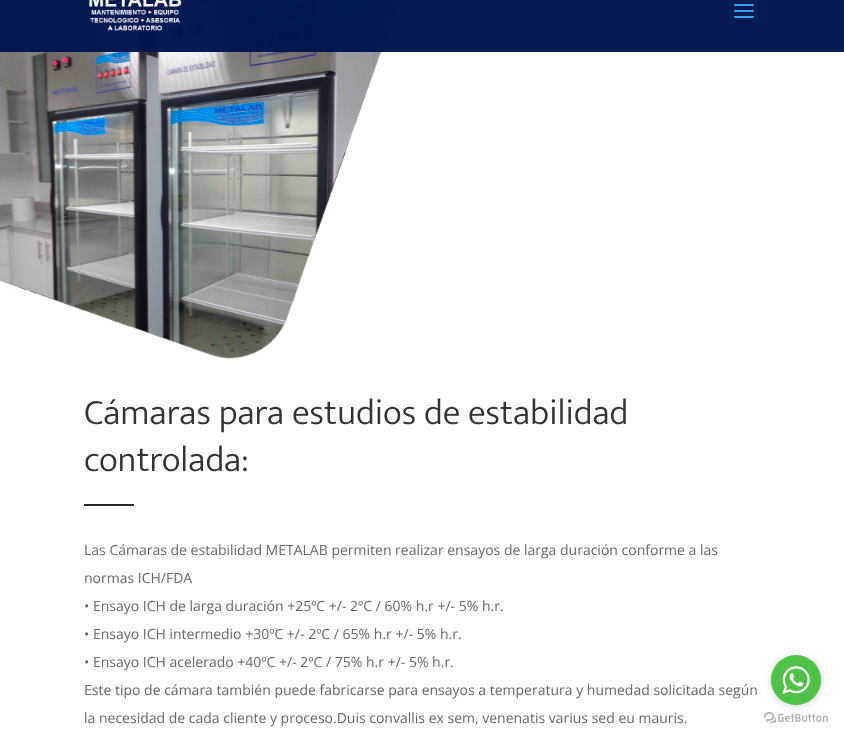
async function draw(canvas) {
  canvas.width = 844;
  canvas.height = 739;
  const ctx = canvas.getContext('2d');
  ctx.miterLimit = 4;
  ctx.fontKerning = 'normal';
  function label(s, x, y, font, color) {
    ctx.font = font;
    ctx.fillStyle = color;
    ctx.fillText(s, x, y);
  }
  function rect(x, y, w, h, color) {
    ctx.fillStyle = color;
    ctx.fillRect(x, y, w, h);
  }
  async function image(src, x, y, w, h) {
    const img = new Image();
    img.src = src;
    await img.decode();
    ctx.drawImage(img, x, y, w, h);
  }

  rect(0, 0, 844, 739, '#fff');
  await image('assets/img3.png', 0, 0, 398, 359);
  rect(0, 0, 844, 52, '#00164ffa');
  await image('assets/img1.png', 88, 0, 94, 31);
  await image('assets/img2.png', 734, 4, 20, 14);
  label('Cámaras para estudios de estabilidad', 84, 424, '300 36px Mukta', '#333');
  label('controlada:', 84, 471, '300 36px Mukta', '#333');
  rect(84, 504, 50, 2, '#2a2a2a');
  label('Las Cámaras de estabilidad METALAB permiten realizar ensayos de larga duración conforme a las', 84, 555, '14px Open Sans', '#666');
  label('normas ICH/FDA', 84, 583, '14px Open Sans', '#666');
  label('• Ensayo ICH de larga duración +25ºC +/- 2ºC / 60% h.r +/- 5% h.r.', 84, 611, '14px Open Sans', '#666');
  label('• Ensayo ICH intermedio +30ºC +/- 2ºC / 65% h.r +/- 5% h.r.', 84, 639, '14px Open Sans', '#666');
  label('• Ensayo ICH acelerado +40ºC +/- 2ºC / 75% h.r +/- 5% h.r.', 84, 667, '14px Open Sans', '#666');
  label('Este tipo de cámara también puede fabricarse para ensayos a temperatura y humedad solicitada según', 84, 695, '14px Open Sans', '#666');
  label('la necesidad de cada cliente y proceso.Duis convallis ex sem, venenatis varius sed eu mauris.', 84, 723, '14px Open Sans', '#666');
  await image('assets/img5.png', 764, 712, 64, 11);
  ctx.fillStyle = '#88888866';
  ctx.filter = 'blur(3.5px)';
  ctx.beginPath();
  ctx.roundRect(771, 656, 50, 50, 25);
  ctx.fill();
  ctx.filter = 'none';
  ctx.fillStyle = '#4dc247';
  ctx.beginPath();
  ctx.arc(796, 680, 25, 0, 2 * Math.PI);
  ctx.fill();
  await image('assets/img4.png', 782, 666, 28, 28);
}

draw(document.querySelector('canvas'));
